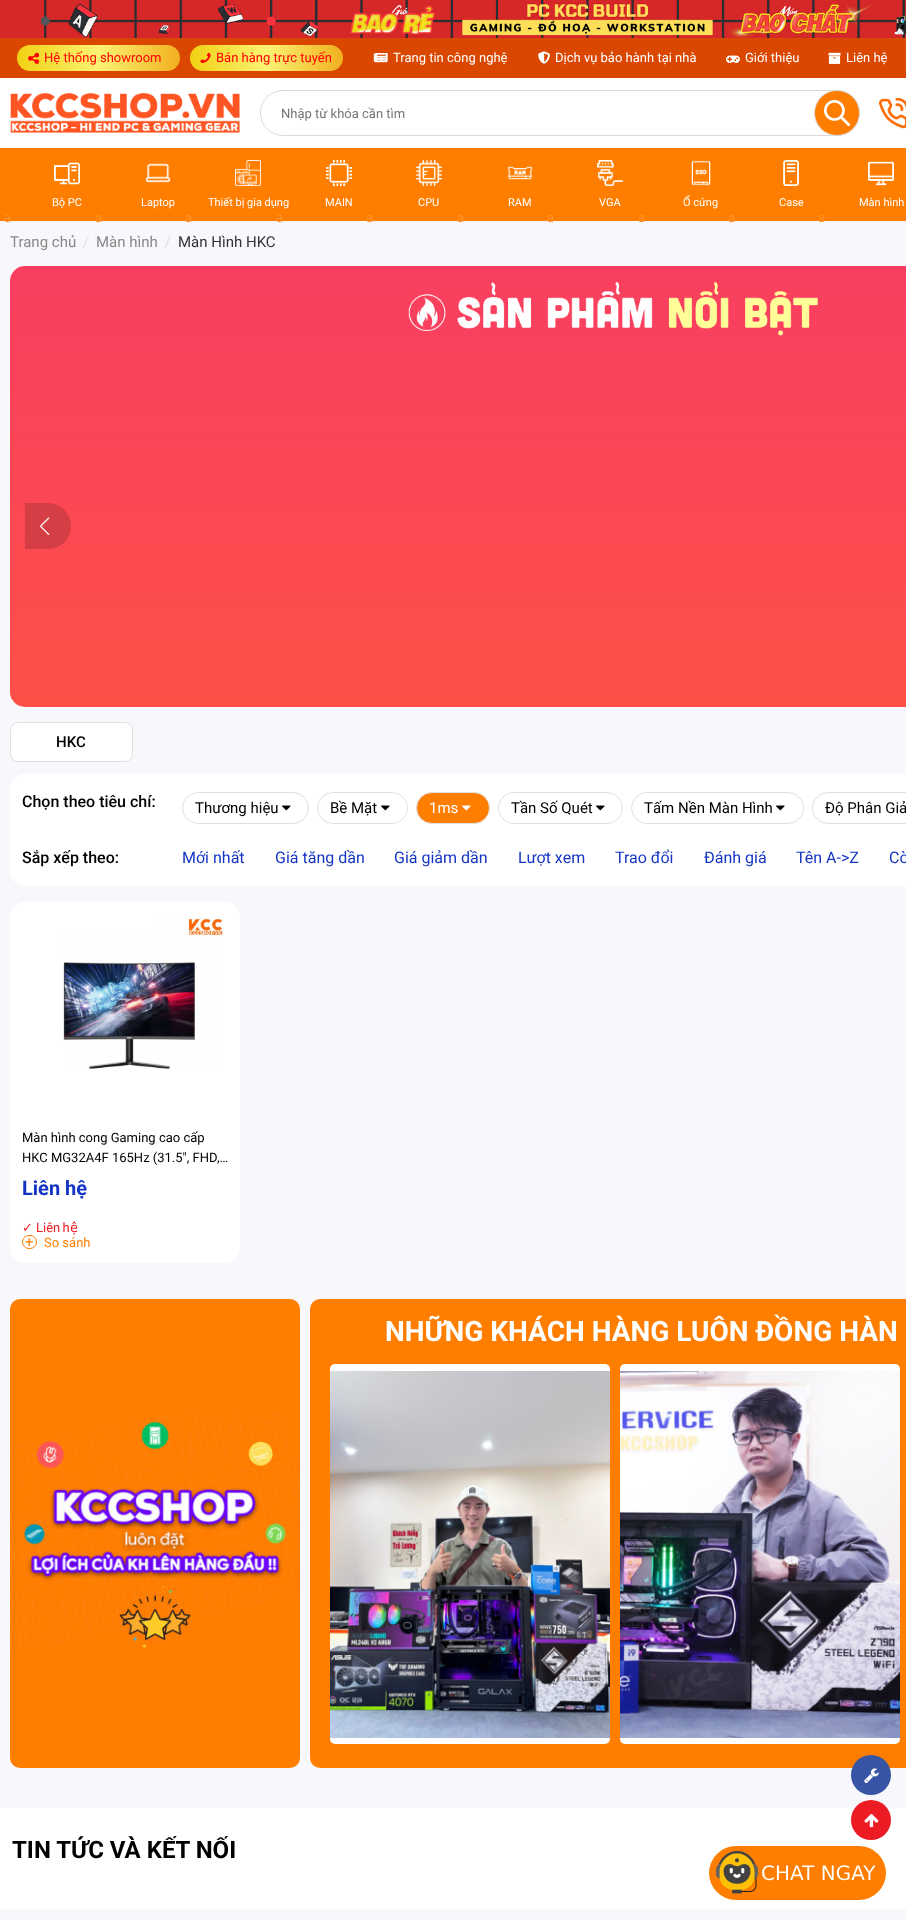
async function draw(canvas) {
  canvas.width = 906;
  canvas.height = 1920;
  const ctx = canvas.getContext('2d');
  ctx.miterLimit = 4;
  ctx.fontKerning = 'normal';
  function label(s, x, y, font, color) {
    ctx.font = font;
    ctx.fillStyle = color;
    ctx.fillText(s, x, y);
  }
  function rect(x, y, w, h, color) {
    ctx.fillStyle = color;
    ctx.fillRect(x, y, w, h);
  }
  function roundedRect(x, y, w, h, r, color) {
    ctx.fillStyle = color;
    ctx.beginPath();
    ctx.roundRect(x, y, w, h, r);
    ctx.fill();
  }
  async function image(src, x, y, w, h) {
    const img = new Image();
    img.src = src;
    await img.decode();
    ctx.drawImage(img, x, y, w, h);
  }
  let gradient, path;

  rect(0, 0, 906, 1920, '#f8f8fc');
  await image('assets/img1.png', 0, 0, 906, 38);
  rect(0, 38, 906, 40, '#d94700');
  gradient = ctx.createLinearGradient(17, 58, 343, 58);
  gradient.addColorStop(0, '#f1d113');
  gradient.addColorStop(0.25, '#fef273');
  gradient.addColorStop(0.5, '#f1b01f');
  gradient.addColorStop(0.75, '#fde904');
  gradient.addColorStop(1, '#e5bf23');
  ctx.fillStyle = gradient;
  ctx.beginPath();
  ctx.roundRect(17, 45, 163, 26, 13);
  ctx.fill();
  await image('assets/img2.png', 28, 52, 12, 12);
  label('Hệ thống showroom', 44, 62, '13px Roboto', '#f00');
  gradient = ctx.createLinearGradient(190, 58, 496, 58);
  gradient.addColorStop(0, '#f1d113');
  gradient.addColorStop(0.25, '#fef273');
  gradient.addColorStop(0.5, '#f1b01f');
  gradient.addColorStop(0.75, '#fde904');
  gradient.addColorStop(1, '#e5bf23');
  ctx.fillStyle = gradient;
  ctx.beginPath();
  ctx.roundRect(190, 45, 153, 26, 13);
  ctx.fill();
  await image('assets/img3.png', 200, 52, 11, 11);
  label('Bán hàng trực tuyến', 216, 62, '13px Roboto', '#f00');
  await image('assets/img4.png', 373, 53, 15, 10);
  label('Trang tin công nghệ', 393, 62, '13px Roboto', '#fff');
  await image('assets/img5.png', 538, 51, 12, 13);
  label('Dịch vụ bảo hành tại nhà', 555, 62, '13px Roboto', '#fff');
  await image('assets/img6.png', 726, 55, 14, 8);
  label('Giới thiệu', 745, 62, '13px Roboto', '#fff');
  await image('assets/img7.png', 828, 52, 13, 12);
  label('Liên hệ', 846, 62, '13px Roboto', '#fff');
  rect(0, 78, 906, 70, '#fff');
  await image('assets/img8.png', 10, 93, 230, 40);
  ctx.beginPath();
  ctx.roundRect(260.5, 90.5, 599, 45, 22.5);
  ctx.strokeStyle = '#d9d9d9';
  ctx.stroke();
  label('Nhập từ khóa cần tìm', 281, 118, '13px Roboto', '#757575');
  ctx.fillStyle = '#ff7e00';
  ctx.beginPath();
  ctx.arc(837, 113, 22.5, 0, 2 * Math.PI);
  ctx.fill();
  ctx.stroke();
  await image('assets/img9.png', 824, 100, 26, 26);
  await image('assets/img10.png', 879, 98, 27, 31);
  rect(0, 148, 906, 73, '#ff7e00');
  await image('assets/img11.png', 54, 162, 26, 23);
  label('Bộ PC', 52, 206, '11px Roboto', '#fff');
  label('a', 4, 222, '13px Roboto', '#fe9632');
  await image('assets/img12.png', 145, 163, 26, 20);
  label('Laptop', 141, 206, '11px Roboto', '#fff');
  label('a', 95, 222, '13px Roboto', '#fe932c');
  await image('assets/img13.png', 235, 160, 26, 26);
  label('Thiết bị gia dụng', 208, 206, '11px Roboto', '#fff');
  label('a', 185, 222, '13px Roboto', '#fe9632');
  await image('assets/img14.png', 326, 160, 26, 26);
  label('MAIN', 325, 206, '11px Roboto', '#fff');
  label('a', 276, 222, '13px Roboto', '#fe9632');
  await image('assets/img15.png', 416, 160, 26, 26);
  label('CPU', 418, 206, '11px Roboto', '#fff');
  label('a', 366, 222, '13px Roboto', '#fe9632');
  await image('assets/img16.png', 507, 166, 26, 14);
  label('RAM', 508, 206, '11px Roboto', '#fff');
  label('a', 457, 222, '13px Roboto', '#fe9632');
  await image('assets/img17.png', 597, 160, 26, 26);
  label('VGA', 599, 206, '11px Roboto', '#fff');
  label('a', 547, 222, '13px Roboto', '#fe9632');
  await image('assets/img18.png', 691, 160, 20, 26);
  label('Ổ cứng', 683, 206, '11px Roboto', '#fff');
  label('a', 638, 222, '13px Roboto', '#fe932c');
  await image('assets/img19.png', 783, 160, 16, 26);
  label('Case', 779, 206, '11px Roboto', '#fff');
  label('a', 728, 222, '13px Roboto', '#fe9632');
  await image('assets/img20.png', 868, 161, 26, 25);
  label('Màn hình', 859, 206, '11px Roboto', '#fff');
  label('a', 818, 222, '13px Roboto', '#fe932c');
  label('Trang chủ', 10, 247, '15px Roboto', '#888');
  ctx.fillStyle = '#dfdfdf';
  path = new Path2D('M88.5 235.5L89 236L83 249L82 248.5Z');
  ctx.fill(path);
  label('Màn hình', 96, 247, '15px Roboto', '#888');
  ctx.fillStyle = '#dfdfdf';
  path = new Path2D('M170 235.5L171 236L165 249L164 248.5Z');
  ctx.fill(path);
  label('Màn Hình HKC', 178, 247, '15px Roboto', '#333');
  gradient = ctx.createLinearGradient(610, 266, 610, 707);
  gradient.addColorStop(0, '#f83e60');
  gradient.addColorStop(1, '#fe5048');
  ctx.fillStyle = gradient;
  ctx.beginPath();
  ctx.roundRect(10, 266, 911, 441, 15);
  ctx.fill();
  await image('assets/img21.png', 408, 281, 410, 55);
  ctx.fillStyle = '#d63e46';
  ctx.beginPath();
  ctx.roundRect(25, 503, 46, 46, [0, 23, 23, 0]);
  ctx.fill();
  await image('assets/img22.png', 40, 517, 10, 18);
  ctx.fillStyle = '#fff';
  ctx.beginPath();
  ctx.roundRect(10.5, 722.5, 122, 39, 7.5);
  ctx.fill();
  ctx.strokeStyle = '#e0e0e0';
  ctx.stroke();
  label('HKC', 56, 747, '500 15px Roboto', '#000');
  roundedRect(10, 774, 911, 112, 15, '#fff');
  label('Chọn theo tiêu chí:', 22, 807, '500 16px Roboto', '#000');
  ctx.beginPath();
  ctx.roundRect(182.5, 792.5, 126, 31, 15.5);
  ctx.stroke();
  label('Thương hiệu', 195, 813, '15px Roboto', '#000');
  await image('assets/img23.png', 282, 805, 9, 6);
  ctx.beginPath();
  ctx.roundRect(317.5, 792.5, 90, 31, 15.5);
  ctx.stroke();
  label('Bề Mặt', 330, 813, '15px Roboto', '#000');
  await image('assets/img23.png', 381, 805, 9, 6);
  ctx.fillStyle = '#ff7e00';
  ctx.beginPath();
  ctx.roundRect(416.5, 792.5, 73, 31, 15.5);
  ctx.fill();
  ctx.stroke();
  label('1ms', 429, 813, '15px Roboto', '#fff');
  await image('assets/img24.png', 462, 805, 9, 6);
  ctx.beginPath();
  ctx.roundRect(498.5, 792.5, 124, 31, 15.5);
  ctx.stroke();
  label('Tần Số Quét', 511, 813, '15px Roboto', '#000');
  await image('assets/img23.png', 596, 805, 9, 6);
  ctx.beginPath();
  ctx.roundRect(631.5, 792.5, 172, 31, 15.5);
  ctx.stroke();
  label('Tấm Nền Màn Hình', 644, 813, '15px Roboto', '#000');
  await image('assets/img23.png', 776, 805, 9, 6);
  ctx.beginPath();
  ctx.roundRect(812.5, 792.5, 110, 31, 15.5);
  ctx.stroke();
  label('Độ Phân Giả', 825, 813, '15px Roboto', '#000');
  label('Sắp xếp theo:', 22, 863, '500 16px Roboto', '#000');
  label('Mới nhất', 182, 863, '16px Roboto', '#1435c3');
  label('Giá tăng dần', 275, 863, '16px Roboto', '#1435c3');
  label('Giá giảm dần', 394, 863, '16px Roboto', '#1435c3');
  label('Lượt xem', 518, 863, '16px Roboto', '#1435c3');
  label('Trao đổi', 615, 863, '16px Roboto', '#1435c3');
  label('Đánh giá', 704, 863, '16px Roboto', '#1435c3');
  label('Tên A->Z', 796, 863, '16px Roboto', '#1435c3');
  label('Cò', 889, 863, '16px Roboto', '#1435c3');
  roundedRect(10, 902, 230, 361, 15, '#fff');
  await image('assets/img25.png', 63, 917, 161, 153);
  label('Màn hình cong Gaming cao cấp', 22, 1142, '13px Roboto', '#000');
  label('HKC MG32A4F 165Hz (31.5", FHD,…', 22, 1162, '13px Roboto', '#000');
  label('Liên hệ', 22, 1195, 'bold 20px Roboto', '#1435c3');
  label('✓', 22, 1232, '13px DejaVu Sans', '#ed1b24');
  ctx.wordSpacing = '-1px';
  label('Liên h', 36, 1232, '13px Roboto', '#ed1b24');
  ctx.wordSpacing = '0px';
  label('ệ', 70, 1232, '13px DejaVu Sans', '#ed1b24');
  ctx.beginPath();
  ctx.roundRect(22.5, 1235.5, 14, 13, 6.5);
  ctx.strokeStyle = '#ff7e00';
  ctx.stroke();
  label('+', 25, 1247, '15px Roboto', '#ff7e00');
  label('So sánh', 44, 1247, '13px Roboto', '#ff7e00');
  roundedRect(10, 1299, 290, 469, 10, '#ff7e00');
  await image('assets/img26.png', 10, 1411, 290, 242);
  roundedRect(310, 1299, 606, 469, 10, '#ff7e00');
  label('NHỮNG KHÁCH HÀNG LUÔN ĐỒNG HÀN', 385, 1341, 'bold 28px Roboto', '#fff');
  roundedRect(330, 1364, 280, 380, 5, '#fff');
  await image('assets/img27.png', 330, 1371, 280, 367);
  roundedRect(620, 1364, 280, 380, 5, '#fff');
  await image('assets/img28.png', 620, 1371, 280, 367);
  ctx.fillStyle = '#3754a5';
  ctx.beginPath();
  ctx.arc(871, 1775, 20, 0, 2 * Math.PI);
  ctx.fill();
  await image('assets/img29.png', 864, 1768, 15, 16);
  rect(0, 1808, 906, 101, '#fff');
  ctx.fillStyle = '#ed1b24';
  ctx.beginPath();
  ctx.arc(871, 1820, 20, 0, 2 * Math.PI);
  ctx.fill();
  await image('assets/img30.png', 864, 1814, 15, 14);
  ctx.save();
  ctx.beginPath();
  ctx.rect(12, 1836, 224, 29);
  ctx.clip();
  label('TIN TỨC VÀ KẾT NỐI', 12, 1858, 'bold 24px Roboto', '#000');
  ctx.restore();
  await image('assets/img31.png', 709, 1846, 177, 54);
}

draw(document.querySelector('canvas'));
